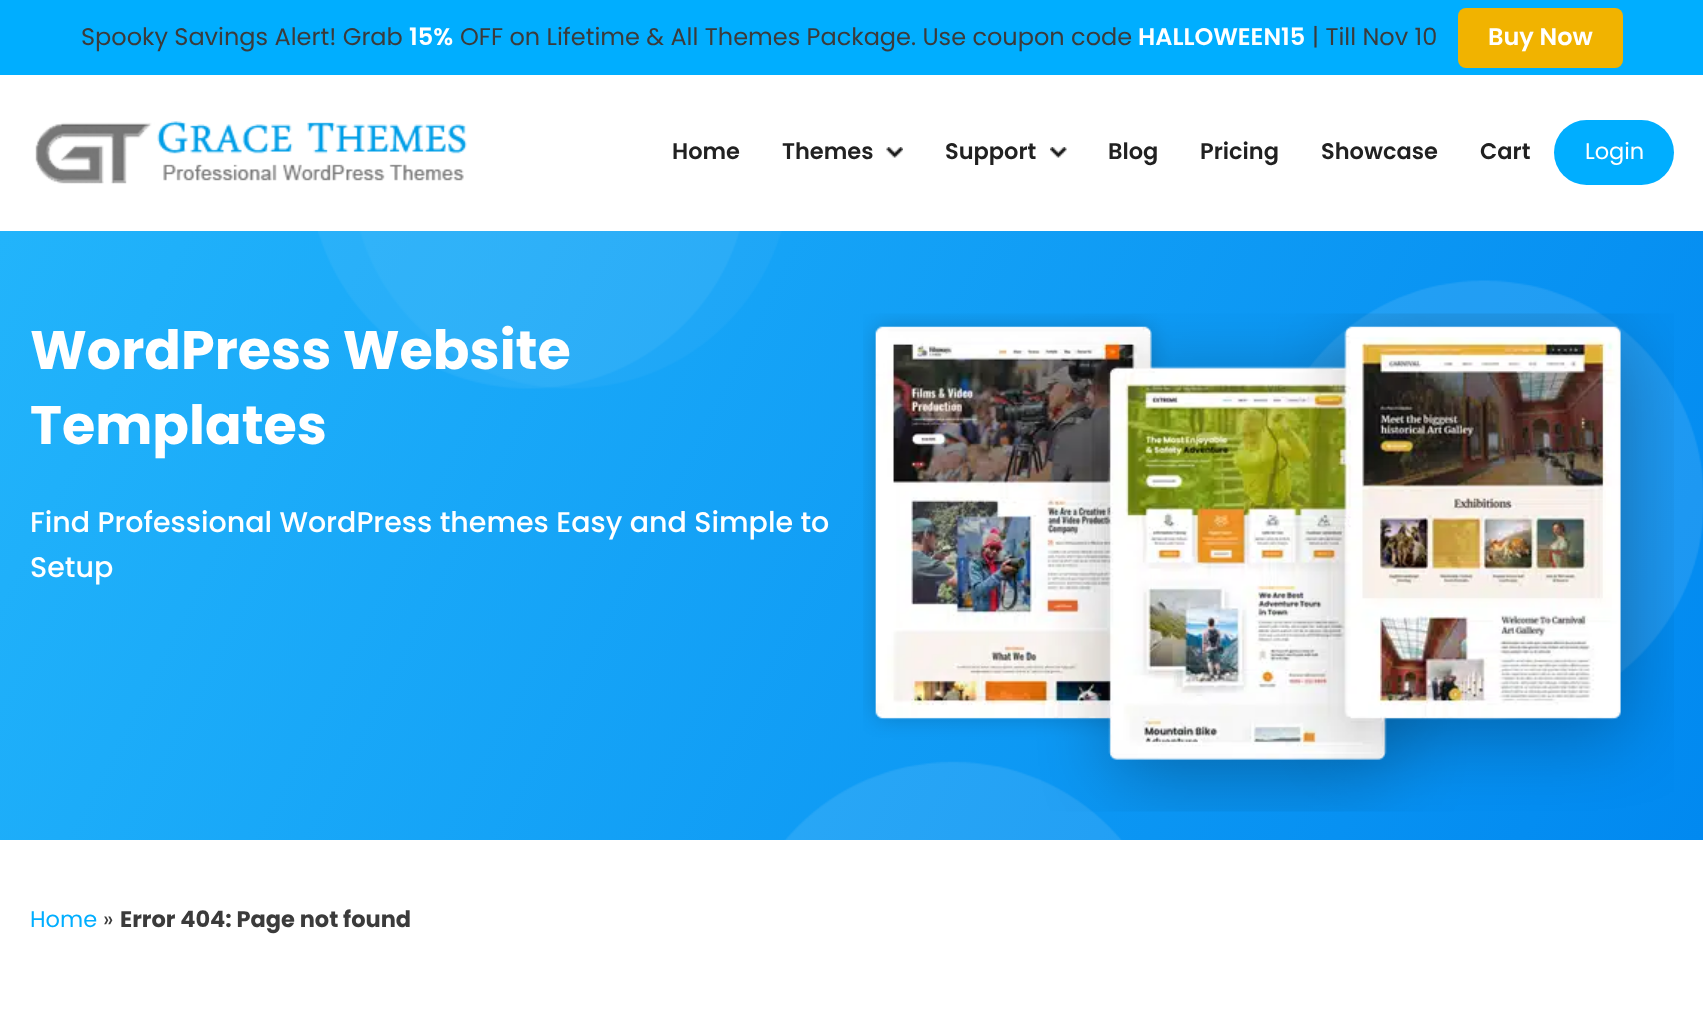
async function draw(canvas) {
  canvas.width = 1703;
  canvas.height = 1013;
  const ctx = canvas.getContext('2d');
  ctx.miterLimit = 4;
  ctx.fontKerning = 'normal';
  function label(s, x, y, font, color) {
    ctx.font = font;
    ctx.fillStyle = color;
    ctx.fillText(s, x, y);
  }
  function rect(x, y, w, h, color) {
    ctx.fillStyle = color;
    ctx.fillRect(x, y, w, h);
  }
  function roundedRect(x, y, w, h, r, color) {
    ctx.fillStyle = color;
    ctx.beginPath();
    ctx.roundRect(x, y, w, h, r);
    ctx.fill();
  }
  async function image(src, x, y, w, h) {
    const img = new Image();
    img.src = src;
    await img.decode();
    ctx.drawImage(img, x, y, w, h);
  }
  let gradient;

  rect(0, 0, 1703, 1013, '#fff');
  rect(0, 0, 1703, 75, '#00aeff');
  label('Spooky Savings Alert! Grab', 81, 45, '24px Poppins', '#3b3b3b');
  label('15%', 409, 45, '600 24px Poppins', '#fff');
  label('OFF on Lifetime & All Themes Package. Use coupon code', 460, 45, '24px Poppins', '#3b3b3b');
  label('HALLOWEEN15', 1138, 45, '600 24px Poppins', '#fff');
  label('| Till Nov 10', 1312, 45, '24px Poppins', '#3b3b3b');
  roundedRect(1458, 8, 165, 60, 8, '#f1b300');
  label('Buy Now', 1488, 45, '600 24px Poppins', '#fff');
  await image('assets/img1.png', 35, 121, 432, 63);
  label('Home', 672, 159, '600 22.5px Poppins', '#212121');
  label('Themes', 782, 159, '600 22.5px Poppins', '#212121');
  await image('assets/img2.png', 886, 147, 17, 11);
  label('Support', 945, 159, '600 22.5px Poppins', '#212121');
  await image('assets/img3.png', 1050, 147, 17, 11);
  label('Blog', 1108, 159, '600 22.5px Poppins', '#212121');
  label('Pricing', 1200, 159, '600 22.5px Poppins', '#212121');
  label('Showcase', 1321, 159, '600 22.5px Poppins', '#212121');
  label('Cart', 1480, 159, '600 22.5px Poppins', '#212121');
  roundedRect(1554, 120, 120, 65, 32.5, '#00aeff');
  label('Login', 1585, 159, '22.5px Poppins', '#fff');
  gradient = ctx.createLinearGradient(52, 128, 1652, 943);
  gradient.addColorStop(0, '#6ae9cb');
  gradient.addColorStop(0, '#22b4fb');
  gradient.addColorStop(1, '#0189f0');
  ctx.fillStyle = gradient;
  ctx.fillRect(0, 231, 1703, 609);
  await image('assets/img4.png', 318, 231, 1385, 609);
  label('WordPress Website', 30, 369, 'bold 54px Poppins', '#fff');
  label('Templates', 30, 444, 'bold 54px Poppins', '#fff');
  label('Find Professional WordPress themes Easy and Simple to', 30, 532, '500 28.5px Poppins', '#fff');
  label('Setup', 30, 577, '500 28.5px Poppins', '#fff');
  await image('assets/img5.png', 863, 313, 811, 499);
  label('Home', 30, 927, '22.5px Poppins', '#00aeff');
  label('»', 103, 927, '22.5px Poppins', '#3b3b3b');
  label('Error 404: Page not found', 120, 927, 'bold 22.5px Poppins', '#3b3b3b');
}

draw(document.querySelector('canvas'));
